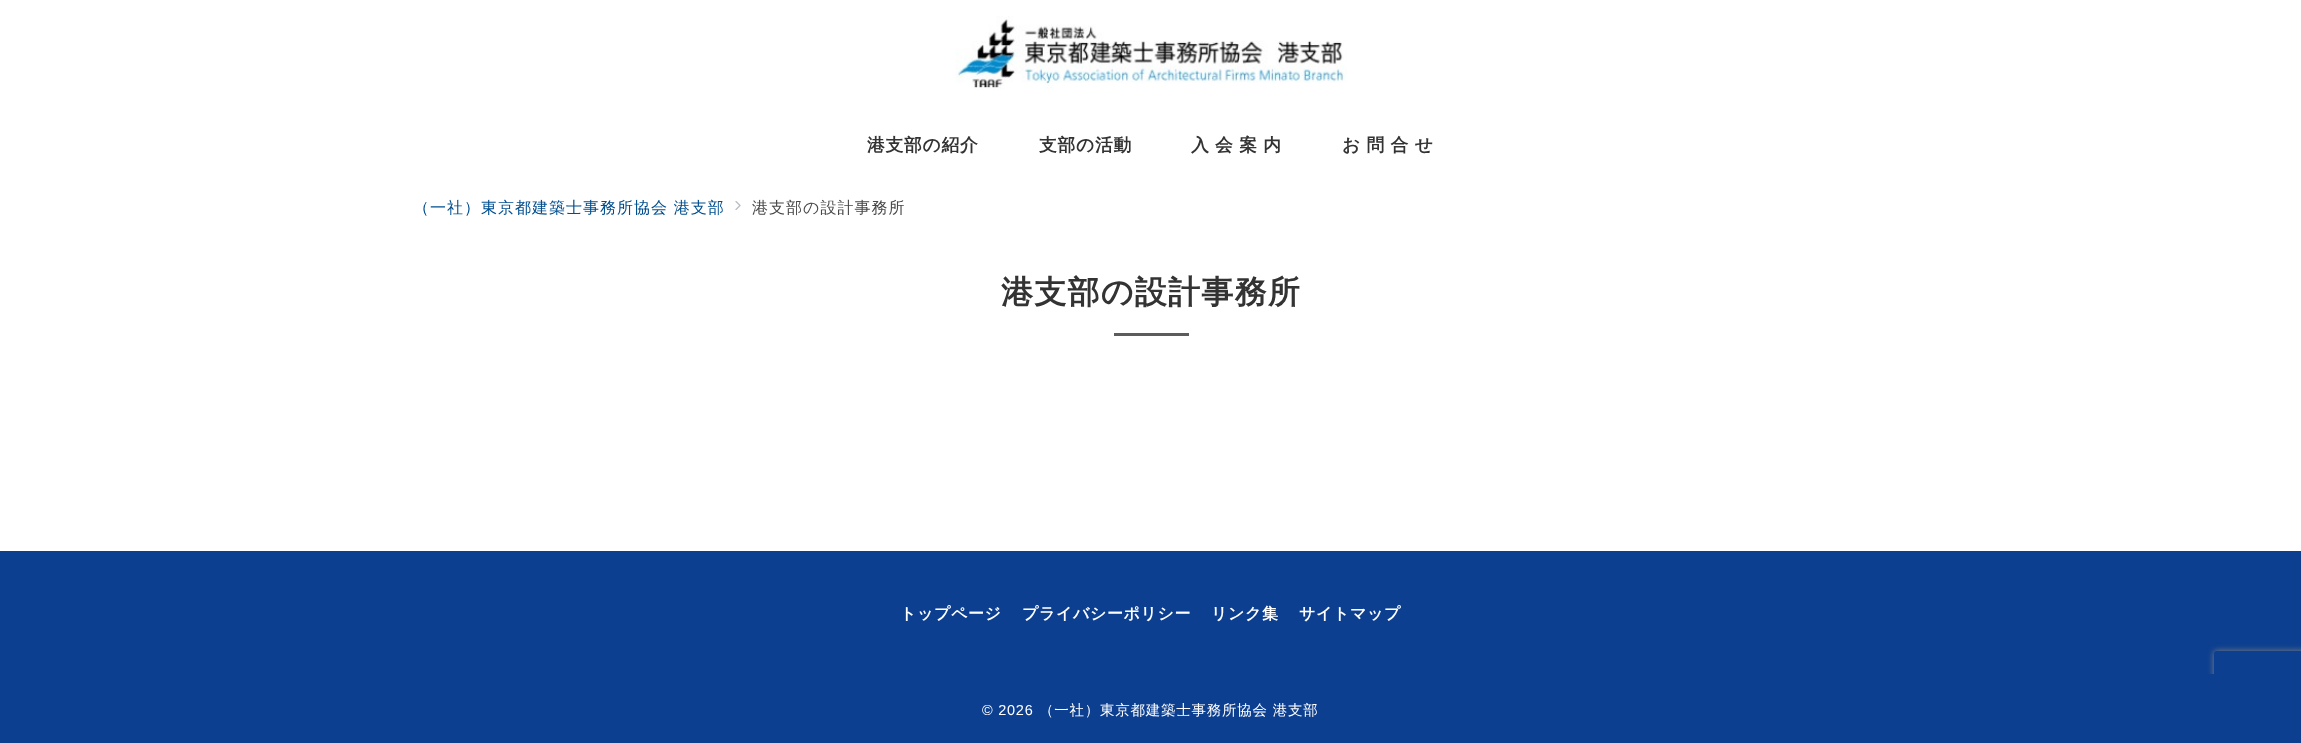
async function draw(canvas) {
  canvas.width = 2301;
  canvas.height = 743;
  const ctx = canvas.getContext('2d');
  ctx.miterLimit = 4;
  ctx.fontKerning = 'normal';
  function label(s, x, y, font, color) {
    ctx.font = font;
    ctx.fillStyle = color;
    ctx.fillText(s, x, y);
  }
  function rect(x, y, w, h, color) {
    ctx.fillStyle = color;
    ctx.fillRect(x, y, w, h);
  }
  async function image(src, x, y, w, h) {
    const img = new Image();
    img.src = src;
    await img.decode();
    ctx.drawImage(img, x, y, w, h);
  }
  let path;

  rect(0, 0, 2301, 743, '#fff');
  await image('assets/img1.png', 955, 16, 392, 74);
  ctx.letterSpacing = '0.75px';
  label('港支部の紹介', 867, 151, 'bold 17.75px WenQuanYi Zen Hei', '#333');
  label('支部の活動', 1039, 151, 'bold 17.75px WenQuanYi Zen Hei', '#333');
  ctx.wordSpacing = '-0.5px';
  label('入 会 案 内', 1191, 151, 'bold 17.75px WenQuanYi Zen Hei', '#333');
  label('お 問 合 せ', 1342, 151, 'bold 17.75px WenQuanYi Zen Hei', '#333');
  ctx.letterSpacing = '1px';
  ctx.wordSpacing = '0px';
  label('（一社）東京都建築士事務所協会 港支部', 413, 213, '500 16px WenQuanYi Zen Hei', '#004e8e');
  await image('assets/img2.png', 735, 201, 6, 9);
  label('港支部の設計事務所', 752, 213, '500 16px WenQuanYi Zen Hei', '#484848');
  ctx.letterSpacing = '1.25px';
  label('港支部の設計事務所', 1001, 303, 'bold 32px WenQuanYi Zen Hei', '#333');
  rect(1114, 333, 75, 3, '#5c5c5c');
  rect(0, 551, 2301, 123, '#0c3f90');
  ctx.letterSpacing = '0.6px';
  label('トップページ', 900, 619, 'bold 16px WenQuanYi Zen Hei', '#fff');
  label('プライバシーポリシー', 1022, 619, 'bold 16px WenQuanYi Zen Hei', '#fff');
  label('リンク集', 1211, 619, 'bold 16px WenQuanYi Zen Hei', '#fff');
  label('サイトマップ', 1299, 619, 'bold 16px WenQuanYi Zen Hei', '#fff');
  ctx.save();
  path = new Path2D('M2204 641H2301V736H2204ZM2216.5 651H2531.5C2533 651 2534 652 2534 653.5V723.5C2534 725 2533 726 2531.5 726H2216.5C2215 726 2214 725 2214 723.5V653.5C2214 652 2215 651 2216.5 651Z');
  ctx.clip(path, 'evenodd');
  ctx.fillStyle = '#808080';
  ctx.filter = 'blur(3px)';
  ctx.beginPath();
  ctx.roundRect(2214, 651, 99, 75, 2.5);
  ctx.fill();
  ctx.filter = 'none';
  ctx.restore();
  rect(0, 674, 2301, 69, '#0c3f90');
  ctx.letterSpacing = '0.75px';
  label('© 2026', 982, 715, '14.5px Liberation Sans', '#fff');
  label('（一社）東京都建築士事務所協会 港支部', 1039, 715, '500 14.5px WenQuanYi Zen Hei', '#fff');
}

draw(document.querySelector('canvas'));
